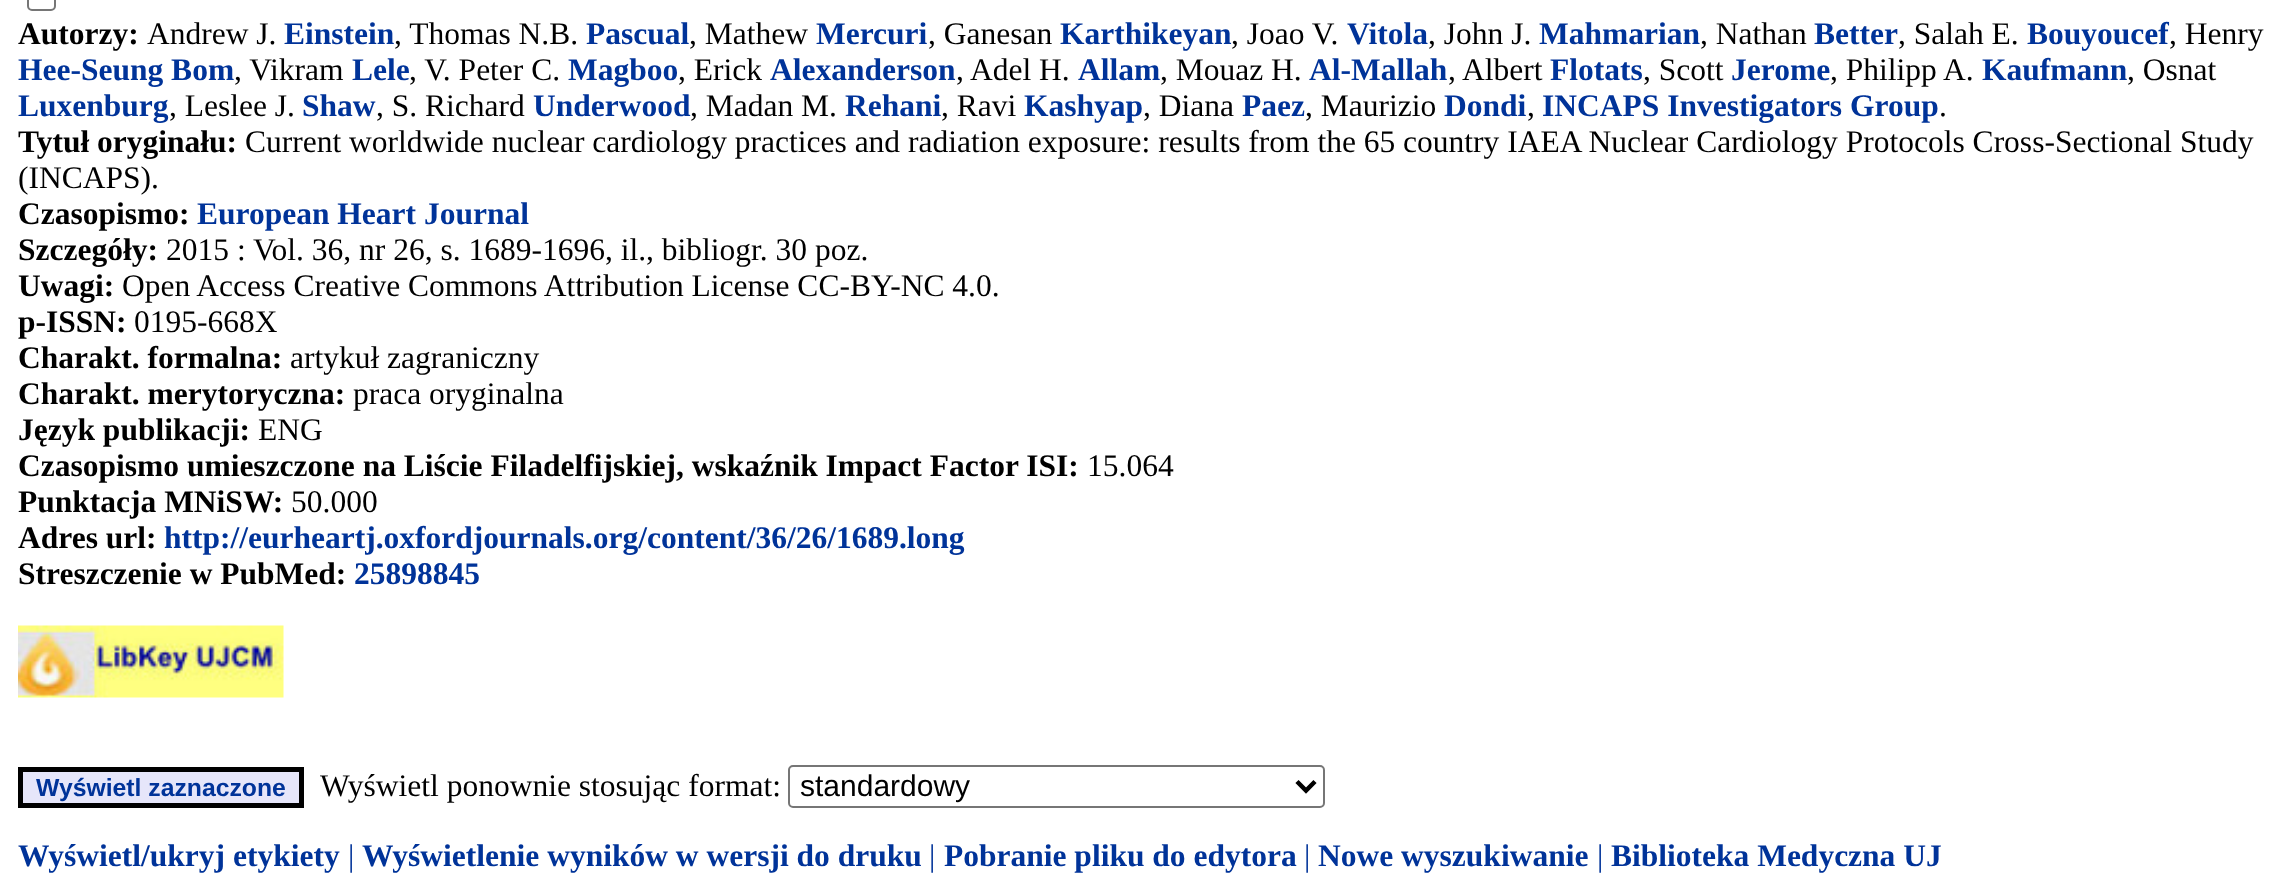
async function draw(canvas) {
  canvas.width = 2296;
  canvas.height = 874;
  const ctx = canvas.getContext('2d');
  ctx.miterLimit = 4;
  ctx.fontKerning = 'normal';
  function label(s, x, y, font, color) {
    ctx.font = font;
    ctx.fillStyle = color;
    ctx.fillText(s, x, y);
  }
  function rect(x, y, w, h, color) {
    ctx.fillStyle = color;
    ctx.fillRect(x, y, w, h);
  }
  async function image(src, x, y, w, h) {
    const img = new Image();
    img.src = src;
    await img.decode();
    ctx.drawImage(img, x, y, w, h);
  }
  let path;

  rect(0, 0, 2296, 874, '#fff');
  ctx.beginPath();
  ctx.roundRect(28, -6, 27, 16, 4);
  ctx.strokeStyle = '#767676';
  ctx.lineWidth = 2;
  ctx.stroke();
  label('Autorzy:', 18, 44, 'bold 31.5px Liberation Serif', '#000');
  label('Andrew J.', 147, 44, '31.5px Liberation Serif', '#000');
  label('Einstein', 284, 44, 'bold 31.5px Liberation Serif', '#039');
  label(', Thomas N.B.', 394, 44, '31.5px Liberation Serif', '#000');
  label('Pascual', 586, 44, 'bold 31.5px Liberation Serif', '#039');
  label(', Mathew', 689, 44, '31.5px Liberation Serif', '#000');
  label('Mercuri', 816, 44, 'bold 31.5px Liberation Serif', '#039');
  label(', Ganesan', 928, 44, '31.5px Liberation Serif', '#000');
  label('Karthikeyan', 1060, 44, 'bold 31.5px Liberation Serif', '#039');
  label(', Joao V.', 1231, 44, '31.5px Liberation Serif', '#000');
  label('Vitola', 1347, 44, 'bold 31.5px Liberation Serif', '#039');
  label(', John J.', 1428, 44, '31.5px Liberation Serif', '#000');
  label('Mahmarian', 1539, 44, 'bold 31.5px Liberation Serif', '#039');
  label(', Nathan', 1700, 44, '31.5px Liberation Serif', '#000');
  label('Better', 1814, 44, 'bold 31.5px Liberation Serif', '#039');
  label(', Salah E.', 1898, 44, '31.5px Liberation Serif', '#000');
  label('Bouyoucef', 2027, 44, 'bold 31.5px Liberation Serif', '#039');
  label(', Henry', 2169, 44, '31.5px Liberation Serif', '#000');
  label('Hee-Seung Bom', 18, 80, 'bold 31.5px Liberation Serif', '#039');
  label(', Vikram', 234, 80, '31.5px Liberation Serif', '#000');
  label('Lele', 352, 80, 'bold 31.5px Liberation Serif', '#039');
  label(', V. Peter C.', 409, 80, '31.5px Liberation Serif', '#000');
  label('Magboo', 568, 80, 'bold 31.5px Liberation Serif', '#039');
  label(', Erick', 678, 80, '31.5px Liberation Serif', '#000');
  label('Alexanderson', 770, 80, 'bold 31.5px Liberation Serif', '#039');
  label(', Adel H.', 956, 80, '31.5px Liberation Serif', '#000');
  label('Allam', 1078, 80, 'bold 31.5px Liberation Serif', '#039');
  label(', Mouaz H.', 1160, 80, '31.5px Liberation Serif', '#000');
  label('Al-Mallah', 1309, 80, 'bold 31.5px Liberation Serif', '#039');
  label(', Albert', 1448, 80, '31.5px Liberation Serif', '#000');
  label('Flotats', 1550, 80, 'bold 31.5px Liberation Serif', '#039');
  label(', Scott', 1643, 80, '31.5px Liberation Serif', '#000');
  label('Jerome', 1731, 80, 'bold 31.5px Liberation Serif', '#039');
  label(', Philipp A.', 1830, 80, '31.5px Liberation Serif', '#000');
  label('Kaufmann', 1982, 80, 'bold 31.5px Liberation Serif', '#039');
  label(', Osnat', 2127, 80, '31.5px Liberation Serif', '#000');
  label('Luxenburg', 18, 116, 'bold 31.5px Liberation Serif', '#039');
  label(', Leslee J.', 169, 116, '31.5px Liberation Serif', '#000');
  label('Shaw', 302, 116, 'bold 31.5px Liberation Serif', '#039');
  label(', S. Richard', 376, 116, '31.5px Liberation Serif', '#000');
  label('Underwood', 533, 116, 'bold 31.5px Liberation Serif', '#039');
  label(', Madan M.', 690, 116, '31.5px Liberation Serif', '#000');
  label('Rehani', 845, 116, 'bold 31.5px Liberation Serif', '#039');
  label(', Ravi', 941, 116, '31.5px Liberation Serif', '#000');
  label('Kashyap', 1024, 116, 'bold 31.5px Liberation Serif', '#039');
  label(', Diana', 1143, 116, '31.5px Liberation Serif', '#000');
  label('Paez', 1242, 116, 'bold 31.5px Liberation Serif', '#039');
  label(', Maurizio', 1305, 116, '31.5px Liberation Serif', '#000');
  label('Dondi', 1444, 116, 'bold 31.5px Liberation Serif', '#039');
  label(',', 1527, 116, '31.5px Liberation Serif', '#000');
  label('INCAPS Investigators Group', 1542, 116, 'bold 31.5px Liberation Serif', '#039');
  label('.', 1939, 116, '31.5px Liberation Serif', '#000');
  label('Tytuł oryginału:', 18, 152, 'bold 31.5px Liberation Serif', '#000');
  label('Current worldwide nuclear cardiology practices and radiation exposure: results from the 65 country IAEA Nuclear Cardiology Protocols Cross-Sectional Study', 245, 152, '31.5px Liberation Serif', '#000');
  label('(INCAPS).', 18, 188, '31.5px Liberation Serif', '#000');
  label('Czasopismo:', 18, 224, 'bold 31.5px Liberation Serif', '#000');
  label('European Heart Journal', 197, 224, 'bold 31.5px Liberation Serif', '#039');
  label('Szczegóły:', 18, 260, 'bold 31.5px Liberation Serif', '#000');
  label('2015 : Vol. 36, nr 26, s. 1689-1696, il., bibliogr. 30 poz.', 166, 260, '31.5px Liberation Serif', '#000');
  label('Uwagi:', 18, 296, 'bold 31.5px Liberation Serif', '#000');
  label('Open Access Creative Commons Attribution License CC-BY-NC 4.0.', 122, 296, '31.5px Liberation Serif', '#000');
  label('p-ISSN:', 18, 332, 'bold 31.5px Liberation Serif', '#000');
  label('0195-668X', 134, 332, '31.5px Liberation Serif', '#000');
  label('Charakt. formalna:', 18, 368, 'bold 31.5px Liberation Serif', '#000');
  label('artykuł zagraniczny', 290, 368, '31.5px Liberation Serif', '#000');
  label('Charakt. merytoryczna:', 18, 404, 'bold 31.5px Liberation Serif', '#000');
  label('praca oryginalna', 353, 404, '31.5px Liberation Serif', '#000');
  label('Język publikacji:', 18, 440, 'bold 31.5px Liberation Serif', '#000');
  label('ENG', 258, 440, '31.5px Liberation Serif', '#000');
  label('Czasopismo umieszczone na Liście Filadelfijskiej, wskaźnik Impact Factor ISI:', 18, 476, 'bold 31.5px Liberation Serif', '#000');
  label('15.064', 1087, 476, '31.5px Liberation Serif', '#000');
  label('Punktacja MNiSW:', 18, 512, 'bold 31.5px Liberation Serif', '#000');
  label('50.000', 291, 512, '31.5px Liberation Serif', '#000');
  label('Adres url:', 18, 548, 'bold 31.5px Liberation Serif', '#000');
  label('http://eurheartj.oxfordjournals.org/content/36/26/1689.long', 164, 548, 'bold 31.5px Liberation Serif', '#039');
  label('Streszczenie w PubMed:', 18, 584, 'bold 31.5px Liberation Serif', '#000');
  label('25898845', 354, 584, 'bold 31.5px Liberation Serif', '#039');
  await image('assets/img1.png', 18, 625, 266, 73);
  ctx.fillStyle = '#e6e6fa';
  ctx.beginPath();
  ctx.rect(20.5, 769.5, 281, 36);
  ctx.fill();
  ctx.strokeStyle = '#000';
  ctx.lineWidth = 5;
  ctx.stroke();
  label('Wyświetl zaznaczone', 36, 796, 'bold 24.75px Liberation Sans', '#039');
  label('Wyświetl ponownie stosując format:', 320, 796, '31.5px Liberation Serif', '#000');
  ctx.beginPath();
  ctx.roundRect(789, 766, 535, 41, 4);
  ctx.strokeStyle = '#767676';
  ctx.lineWidth = 2;
  ctx.stroke();
  path = new Path2D('M1297 781.5L1306 790.5L1315 781.5');
  ctx.strokeStyle = '#000';
  ctx.lineWidth = 4.5;
  ctx.stroke(path);
  label('standardowy', 800, 796, '30px Liberation Sans', '#000');
  label('Wyświetl/ukryj etykiety', 18, 866, 'bold 31.5px Liberation Serif', '#039');
  label('|', 348, 866, '31.5px Liberation Serif', '#039');
  label('Wyświetlenie wyników w wersji do druku', 362, 866, 'bold 31.5px Liberation Serif', '#039');
  label('|', 929, 866, '31.5px Liberation Serif', '#039');
  label('Pobranie pliku do edytora', 944, 866, 'bold 31.5px Liberation Serif', '#039');
  label('|', 1304, 866, '31.5px Liberation Serif', '#039');
  label('Nowe wyszukiwanie', 1318, 866, 'bold 31.5px Liberation Serif', '#039');
  label('|', 1597, 866, '31.5px Liberation Serif', '#039');
  label('Biblioteka Medyczna UJ', 1611, 866, 'bold 31.5px Liberation Serif', '#039');
}

draw(document.querySelector('canvas'));
